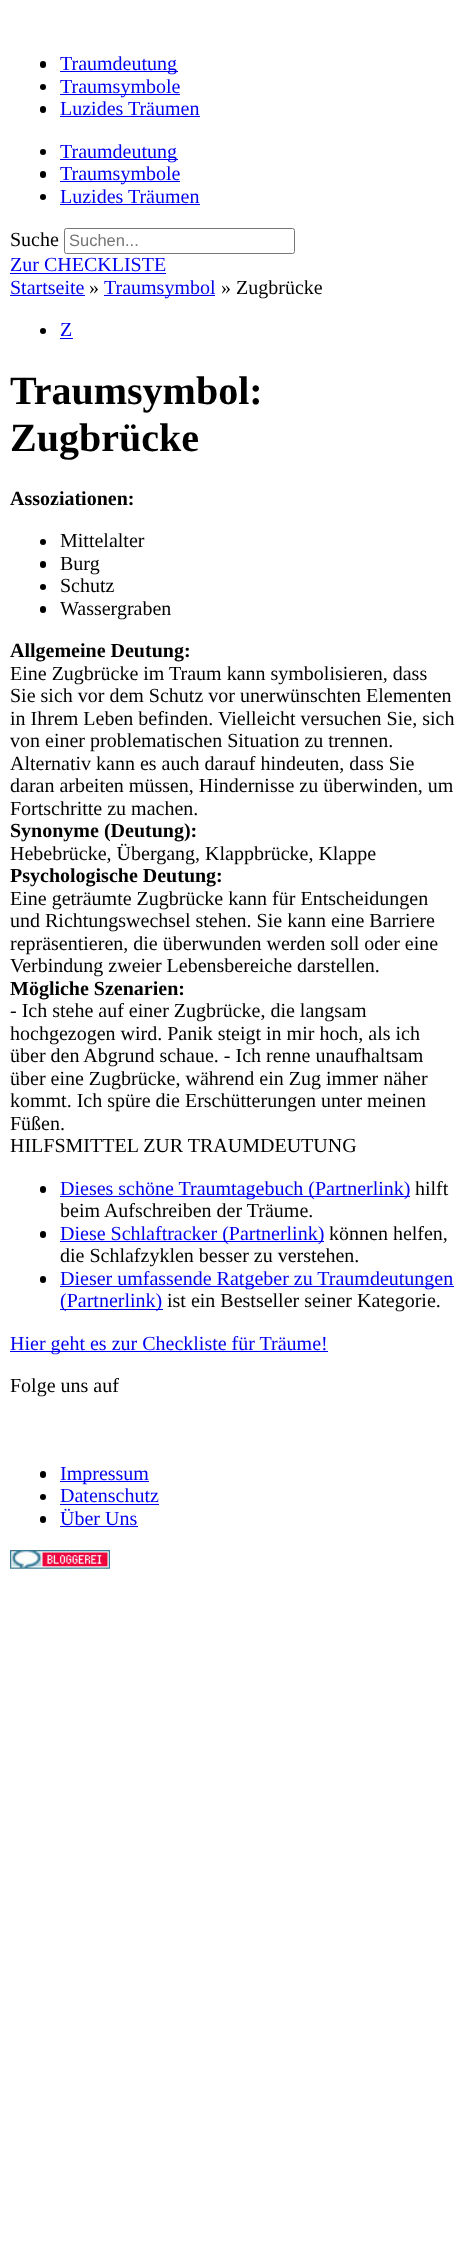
async function draw(canvas) {
  canvas.width = 467;
  canvas.height = 2259;
  const ctx = canvas.getContext('2d');
  ctx.miterLimit = 4;
  ctx.fontKerning = 'normal';
  function label(s, x, y, font, color) {
    ctx.font = font;
    ctx.fillStyle = color;
    ctx.fillText(s, x, y);
  }
  function rect(x, y, w, h, color) {
    ctx.fillStyle = color;
    ctx.fillRect(x, y, w, h);
  }
  function roundedRect(x, y, w, h, r, color) {
    ctx.fillStyle = color;
    ctx.beginPath();
    ctx.roundRect(x, y, w, h, r);
    ctx.fill();
  }
  async function image(src, x, y, w, h) {
    const img = new Image();
    img.src = src;
    await img.decode();
    ctx.drawImage(img, x, y, w, h);
  }

  rect(0, 0, 467, 2259, '#fff');
  roundedRect(40, 61, 6, 7, 3, '#000');
  rect(60, 71, 118, 1, '#00e');
  label('Traumdeutung', 60, 70, '20px Liberation Serif', '#00e');
  ctx.fillStyle = '#000';
  ctx.beginPath();
  ctx.arc(43, 87, 3, 0, 2 * Math.PI);
  ctx.fill();
  rect(60, 94, 120, 1, '#00e');
  label('Traumsymbole', 60, 93, '20px Liberation Serif', '#00e');
  roundedRect(40, 106, 6, 7, 3, '#000');
  label('Luzides Träumen', 60, 115, '20px Liberation Serif', '#00e');
  rect(60, 116, 140, 1, '#00e');
  ctx.fillStyle = '#000';
  ctx.beginPath();
  ctx.arc(43, 152, 3, 0, 2 * Math.PI);
  ctx.fill();
  rect(60, 159, 118, 1, '#00e');
  label('Traumdeutung', 60, 158, '20px Liberation Serif', '#00e');
  roundedRect(40, 171, 6, 7, 3, '#000');
  rect(60, 181, 120, 1, '#00e');
  label('Traumsymbole', 60, 180, '20px Liberation Serif', '#00e');
  ctx.fillStyle = '#000';
  ctx.beginPath();
  ctx.arc(43, 197, 3, 0, 2 * Math.PI);
  ctx.fill();
  label('Luzides Träumen', 60, 203, '20px Liberation Serif', '#00e');
  rect(60, 204, 140, 1, '#00e');
  label('Suche', 10, 246, '20px Liberation Serif', '#000');
  ctx.beginPath();
  ctx.roundRect(64.5, 228.5, 230, 25, 2);
  ctx.strokeStyle = '#767676';
  ctx.stroke();
  label('Suchen...', 69, 246, '16.5px Liberation Sans', '#757575');
  label('Zur CHECKLISTE', 10, 271, '20px Liberation Serif', '#00e');
  rect(10, 273, 156, 1, '#00e');
  label('Startseite', 10, 294, '20px Liberation Serif', '#00e');
  rect(10, 295, 75, 1, '#00e');
  label('»', 89, 294, '20px Liberation Serif', '#000');
  rect(104, 295, 111, 1, '#00e');
  label('Traumsymbol', 104, 294, '20px Liberation Serif', '#00e');
  label('» Zugbrücke', 221, 294, '20px Liberation Serif', '#000');
  ctx.beginPath();
  ctx.arc(43, 331, 3, 0, 2 * Math.PI);
  ctx.fill();
  label('Z', 60, 336, '20px Liberation Serif', '#00e');
  rect(60, 338, 13, 1, '#00e');
  label('Traumsymbol:', 10, 404, 'bold 40px Liberation Serif', '#000');
  label('Zugbrücke', 10, 451, 'bold 40px Liberation Serif', '#000');
  label('Assoziationen:', 10, 505, 'bold 20px Liberation Serif', '#000');
  ctx.beginPath();
  ctx.arc(43, 542, 3, 0, 2 * Math.PI);
  ctx.fill();
  label('Mittelalter', 60, 547, '20px Liberation Serif', '#000');
  roundedRect(40, 561, 6, 7, 3, '#000');
  label('Burg', 60, 570, '20px Liberation Serif', '#000');
  ctx.beginPath();
  ctx.arc(43, 587, 3, 0, 2 * Math.PI);
  ctx.fill();
  label('Schutz', 60, 592, '20px Liberation Serif', '#000');
  roundedRect(40, 606, 6, 7, 3, '#000');
  label('Wassergraben', 60, 615, '20px Liberation Serif', '#000');
  label('Allgemeine Deutung:', 10, 657, 'bold 20px Liberation Serif', '#000');
  label('Eine Zugbrücke im Traum kann symbolisieren, dass', 10, 680, '20px Liberation Serif', '#000');
  label('Sie sich vor dem Schutz vor unerwünschten Elementen', 10, 702, '20px Liberation Serif', '#000');
  label('in Ihrem Leben befinden. Vielleicht versuchen Sie, sich', 10, 725, '20px Liberation Serif', '#000');
  label('von einer problematischen Situation zu trennen.', 10, 747, '20px Liberation Serif', '#000');
  label('Alternativ kann es auch darauf hindeuten, dass Sie', 10, 770, '20px Liberation Serif', '#000');
  label('daran arbeiten müssen, Hindernisse zu überwinden, um', 10, 792, '20px Liberation Serif', '#000');
  label('Fortschritte zu machen.', 10, 815, '20px Liberation Serif', '#000');
  label('Synonyme (Deutung):', 10, 837, 'bold 20px Liberation Serif', '#000');
  label('Hebebrücke, Übergang, Klappbrücke, Klappe', 10, 860, '20px Liberation Serif', '#000');
  label('Psychologische Deutung:', 10, 882, 'bold 20px Liberation Serif', '#000');
  label('Eine geträumte Zugbrücke kann für Entscheidungen', 10, 905, '20px Liberation Serif', '#000');
  label('und Richtungswechsel stehen. Sie kann eine Barriere', 10, 927, '20px Liberation Serif', '#000');
  label('repräsentieren, die überwunden werden soll oder eine', 10, 950, '20px Liberation Serif', '#000');
  label('Verbindung zweier Lebensbereiche darstellen.', 10, 972, '20px Liberation Serif', '#000');
  label('Mögliche Szenarien:', 10, 995, 'bold 20px Liberation Serif', '#000');
  label('- Ich stehe auf einer Zugbrücke, die langsam', 10, 1017, '20px Liberation Serif', '#000');
  label('hochgezogen wird. Panik steigt in mir hoch, als ich', 10, 1040, '20px Liberation Serif', '#000');
  label('über den Abgrund schaue. - Ich renne unaufhaltsam', 10, 1062, '20px Liberation Serif', '#000');
  label('über eine Zugbrücke, während ein Zug immer näher', 10, 1085, '20px Liberation Serif', '#000');
  label('kommt. Ich spüre die Erschütterungen unter meinen', 10, 1107, '20px Liberation Serif', '#000');
  label('Füßen.', 10, 1130, '20px Liberation Serif', '#000');
  label('HILFSMITTEL ZUR TRAUMDEUTUNG', 10, 1152, '20px Liberation Serif', '#000');
  roundedRect(40, 1186, 6, 7, 3, '#000');
  rect(60, 1196, 350, 1, '#00e');
  label('Dieses schöne Traumtagebuch (Partnerlink)', 60, 1195, '20px Liberation Serif', '#00e');
  label('hilft', 415, 1195, '20px Liberation Serif', '#000');
  label('beim Aufschreiben der Träume.', 60, 1217, '20px Liberation Serif', '#000');
  roundedRect(40, 1231, 6, 7, 3, '#000');
  rect(60, 1241, 264, 1, '#00e');
  label('Diese Schlaftracker (Partnerlink)', 60, 1240, '20px Liberation Serif', '#00e');
  label('können helfen,', 329, 1240, '20px Liberation Serif', '#000');
  label('die Schlafzyklen besser zu verstehen.', 60, 1262, '20px Liberation Serif', '#000');
  roundedRect(40, 1276, 6, 7, 3, '#000');
  rect(60, 1286, 394, 1, '#00e');
  label('Dieser umfassende Ratgeber zu Traumdeutungen', 60, 1285, '20px Liberation Serif', '#00e');
  rect(60, 1309, 103, 1, '#00e');
  label('(Partnerlink)', 60, 1307, '20px Liberation Serif', '#00e');
  label('ist ein Bestseller seiner Kategorie.', 167, 1307, '20px Liberation Serif', '#000');
  rect(10, 1351, 318, 1, '#00e');
  label('Hier geht es zur Checkliste für Träume!', 10, 1350, '20px Liberation Serif', '#00e');
  label('Folge uns auf', 10, 1392, '20px Liberation Serif', '#000');
  roundedRect(40, 1471, 6, 7, 3, '#000');
  rect(60, 1481, 89, 1, '#00e');
  label('Impressum', 60, 1480, '20px Liberation Serif', '#00e');
  ctx.fillStyle = '#000';
  ctx.beginPath();
  ctx.arc(43, 1497, 3, 0, 2 * Math.PI);
  ctx.fill();
  label('Datenschutz', 60, 1502, '20px Liberation Serif', '#00e');
  rect(60, 1504, 99, 1, '#00e');
  roundedRect(40, 1516, 6, 7, 3, '#000');
  label('Über Uns', 60, 1525, '20px Liberation Serif', '#00e');
  rect(60, 1526, 78, 1, '#00e');
  await image('assets/img1.png', 10, 1550, 100, 19);
}

draw(document.querySelector('canvas'));
